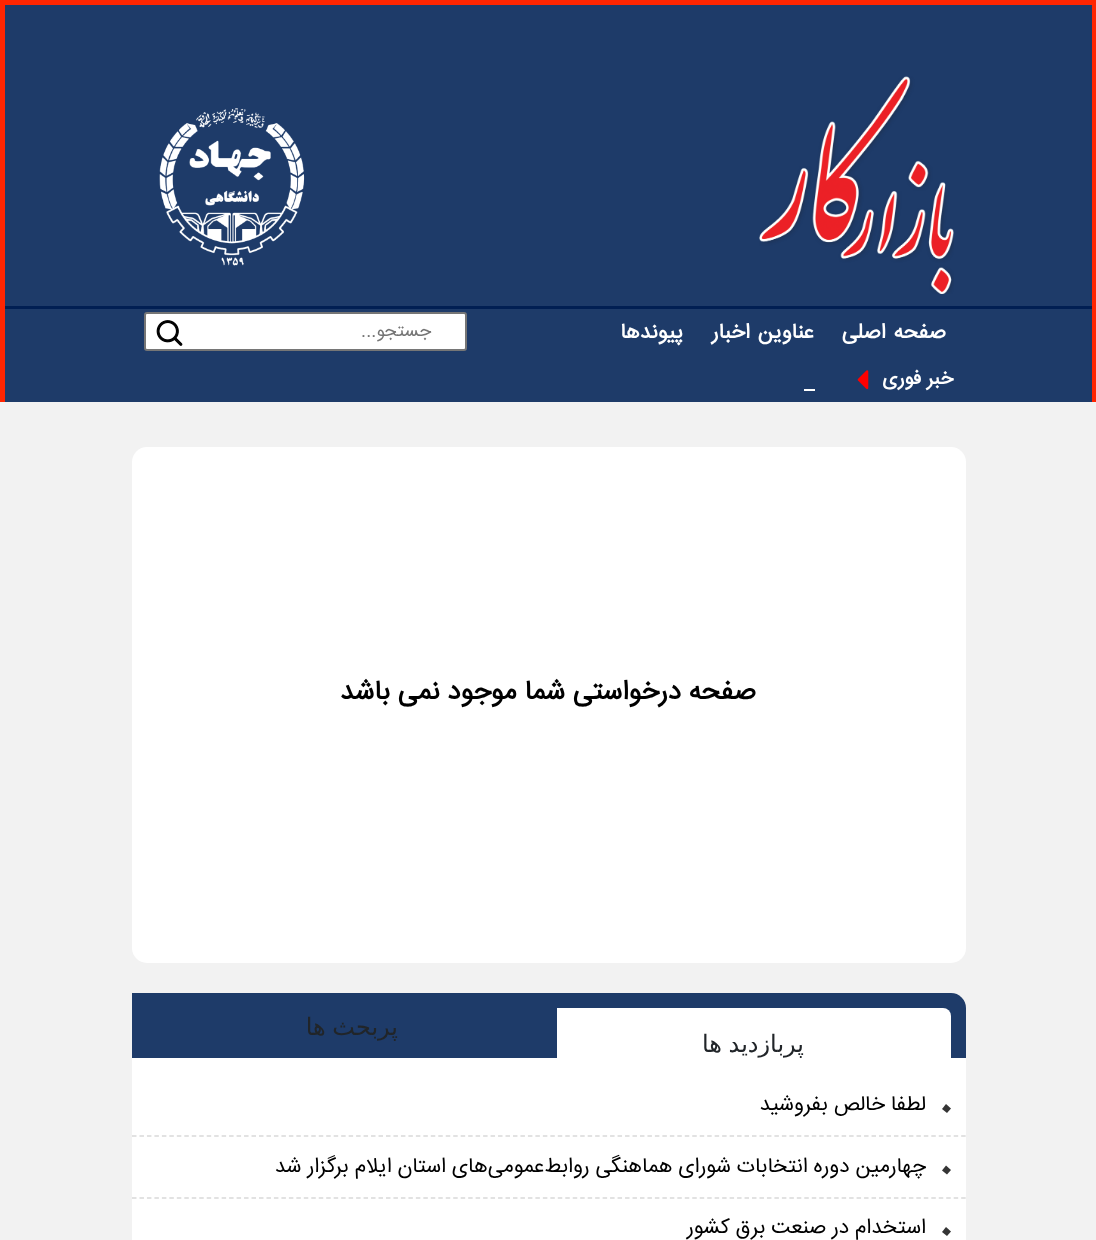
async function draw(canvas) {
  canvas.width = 1096;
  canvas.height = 1240;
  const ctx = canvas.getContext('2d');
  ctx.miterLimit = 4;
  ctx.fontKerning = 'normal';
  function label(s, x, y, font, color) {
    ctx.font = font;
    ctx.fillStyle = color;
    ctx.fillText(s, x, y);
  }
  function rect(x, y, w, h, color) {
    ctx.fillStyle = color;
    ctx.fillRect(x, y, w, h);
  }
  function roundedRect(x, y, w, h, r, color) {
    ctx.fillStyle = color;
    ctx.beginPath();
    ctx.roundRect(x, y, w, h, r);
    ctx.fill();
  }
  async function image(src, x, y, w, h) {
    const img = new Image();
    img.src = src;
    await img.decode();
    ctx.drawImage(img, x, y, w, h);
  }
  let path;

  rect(0, 0, 1096, 1240, '#1e3b69');
  rect(0, 0, 1096, 5, '#ff2501');
  rect(1092, 0, 4, 402, '#ff2501');
  rect(0, 0, 5, 402, '#ff2501');
  await image('assets/img1.png', 759, 76, 195, 218);
  await image('assets/img2.png', 159, 108, 146, 158);
  rect(5, 306, 1087, 3, '#011f53');
  ctx.wordSpacing = '2px';
  ctx.direction = 'rtl';
  label('صفحه اصلی', 946, 338, 'bold 21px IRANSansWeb', '#fff');
  label('عناوین اخبار', 814, 338, 'bold 21px IRANSansWeb', '#fff');
  ctx.wordSpacing = '0px';
  label('پیوندها', 683, 338, 'bold 21px IRANSansWeb', '#fff');
  ctx.beginPath();
  ctx.roundRect(145, 313, 321, 37, 2);
  ctx.fill();
  ctx.strokeStyle = '#767676';
  ctx.lineWidth = 2;
  ctx.stroke();
  label('جستجو...', 431, 336, '18px IRANSansWeb', '#757575');
  await image('assets/img3.png', 156, 320, 27, 26);
  label('خبر فوری', 953, 384, 'bold 19.5px IRANSansWeb', '#fff');
  await image('assets/img4.png', 857, 370, 12, 20);
  rect(804, 389, 11, 2, '#fff');
  rect(0, 402, 1096, 838, '#f2f2f2');
  roundedRect(132, 447, 834, 516, 15, '#fff');
  label('صفحه درخواستی شما موجود نمی باشد', 756, 699, 'bold 27px IRANSansWeb', '#000');
  ctx.fillStyle = '#1e3b69';
  ctx.beginPath();
  ctx.roundRect(132, 993, 834, 68, [0, 15, 0, 0]);
  ctx.fill();
  ctx.wordSpacing = '-1px';
  label('پربحث ها', 398, 1035, '24px DejaVu Sans', '#212529');
  rect(132, 1058, 834, 182, '#fff');
  ctx.beginPath();
  ctx.roundRect(557, 1008, 394, 53, [0, 8, 0, 0]);
  ctx.fill();
  label('پربازدید ها', 804, 1052, '24px DejaVu Sans', '#212529');
  path = new Path2D('M132 1136H966');
  ctx.strokeStyle = '#d9d9d9';
  ctx.lineWidth = 1.5;
  ctx.setLineDash([4.5, 2.97]);
  ctx.stroke(path);
  ctx.fillStyle = '#353535';
  path = new Path2D('M951 1108.5L946 1104L942 1109L947 1113Z');
  ctx.fill(path, 'evenodd');
  ctx.wordSpacing = '0px';
  label('لطفا خالص بفروشید', 926, 1110, '21px IRANSansWeb', '#000');
  path = new Path2D('M132 1198H966');
  ctx.stroke(path);
  ctx.fillStyle = '#353535';
  path = new Path2D('M951 1170L946 1165.5L942 1170.5L947 1174.5Z');
  ctx.fill(path, 'evenodd');
  label('چهارمین دوره انتخابات شورای هماهنگی روابط‌عمومی‌های استان ایلام برگزار شد', 926, 1172, '21px IRANSansWeb', '#000');
  ctx.fillStyle = '#353535';
  path = new Path2D('M951 1231.5L946 1227L942 1232L947 1236Z');
  ctx.fill(path, 'evenodd');
  label('استخدام در صنعت برق کشور', 926, 1233, '21px IRANSansWeb', '#000');
}

draw(document.querySelector('canvas'));
